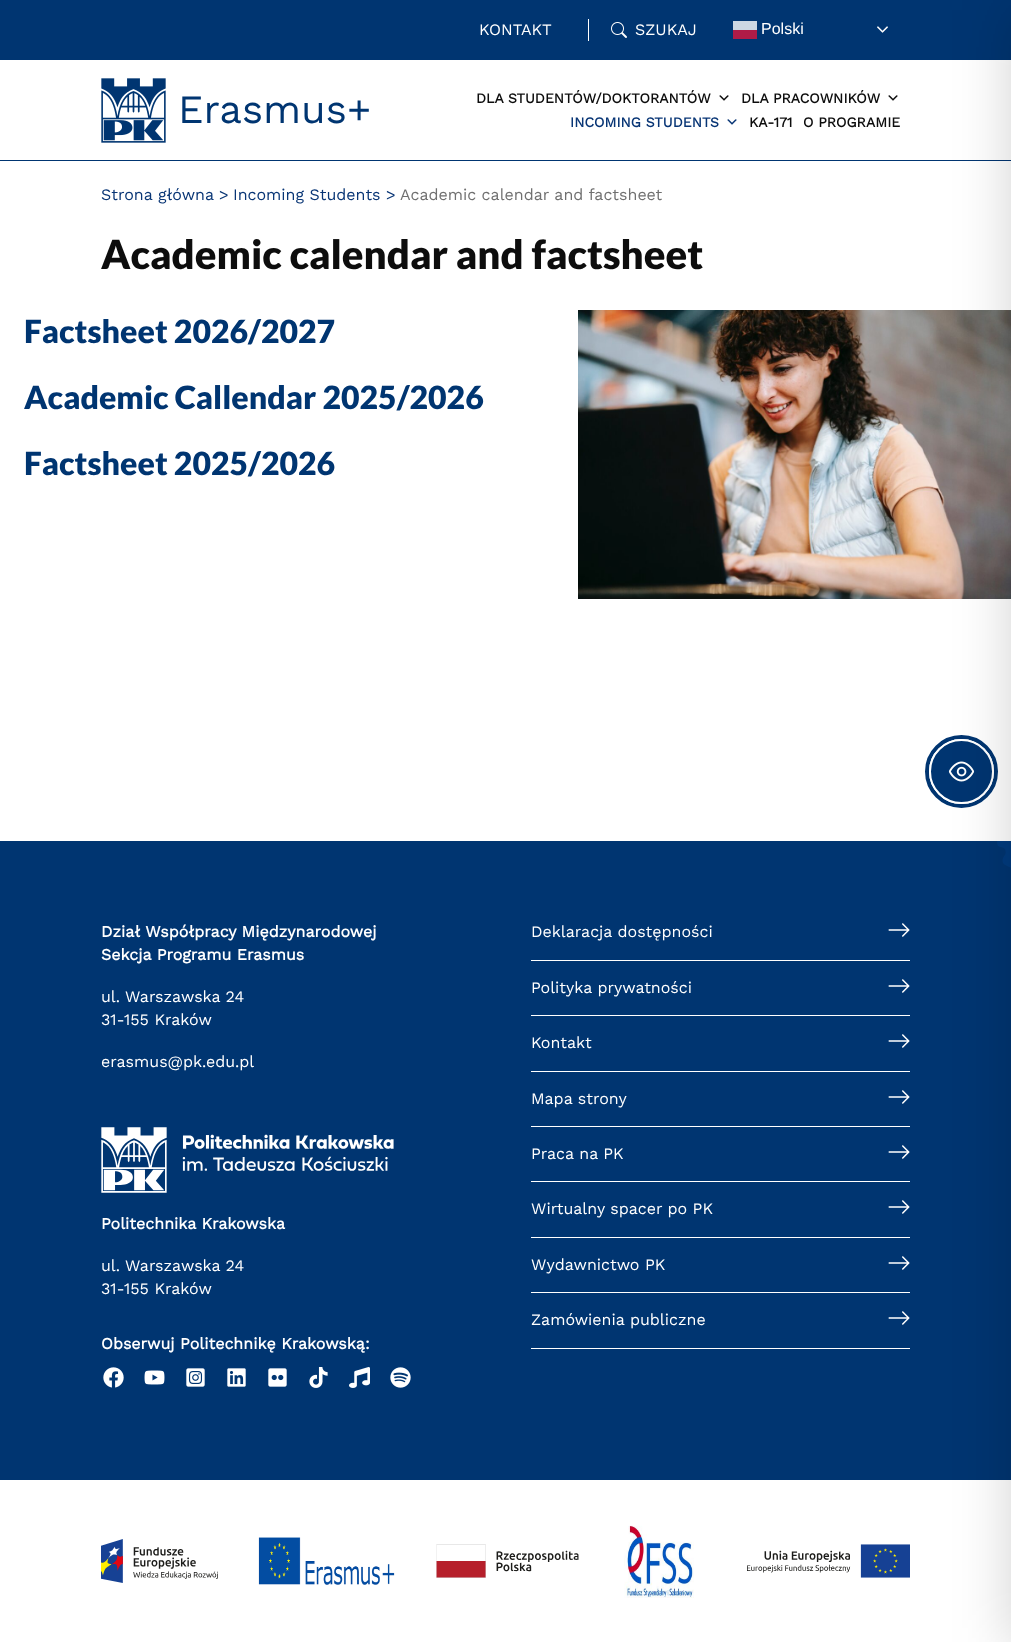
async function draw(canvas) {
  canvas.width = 1011;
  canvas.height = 1642;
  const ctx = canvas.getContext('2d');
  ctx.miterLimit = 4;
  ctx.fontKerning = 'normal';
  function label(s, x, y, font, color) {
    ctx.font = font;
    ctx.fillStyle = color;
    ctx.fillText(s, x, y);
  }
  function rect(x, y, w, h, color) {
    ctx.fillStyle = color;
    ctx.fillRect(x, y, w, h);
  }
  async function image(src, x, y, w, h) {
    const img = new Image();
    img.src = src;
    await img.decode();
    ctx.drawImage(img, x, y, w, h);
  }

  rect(0, 0, 1011, 1642, '#fff');
  rect(0, 0, 1011, 60, '#003571');
  label('KONTAKT', 479, 35, '16px Work Sans', '#fff');
  rect(588, 19, 1, 22, '#fff');
  await image('assets/img1.png', 611, 22, 16, 16);
  label('SZUKAJ', 635, 35, '16px Work Sans', '#fff');
  rect(733, 21, 24, 9, '#ccd7e3');
  label('Polski', 761, 34, '16px Liberation Sans', '#fff');
  await image('assets/img2.png', 877, 26, 11, 7);
  rect(733, 30, 24, 9, '#b01b47');
  rect(0, 160, 1011, 1, '#003571');
  await image('assets/img3.png', 101, 78, 65, 65);
  label('Erasmus+', 178, 123, '40px Work Sans', '#003571');
  label('DLA STUDENTÓW/DOKTORANTÓW', 476, 103, 'bold 14px Work Sans', '#0d0d0d');
  await image('assets/img4.png', 719, 95, 10, 6);
  label('DLA PRACOWNIKÓW', 741, 103, 'bold 14px Work Sans', '#0d0d0d');
  await image('assets/img4.png', 888, 95, 10, 6);
  label('INCOMING STUDENTS', 570, 127, 'bold 14px Work Sans', '#083575');
  await image('assets/img5.png', 727, 119, 10, 6);
  label('KA-171', 749, 127, 'bold 14px Work Sans', '#0d0d0d');
  label('O PROGRAMIE', 803, 127, 'bold 14px Work Sans', '#0d0d0d');
  label('Strona główna', 101, 200, '16px Work Sans', '#083575');
  label('>', 219, 200, '16px Work Sans', '#083575');
  label('Incoming Students', 233, 200, '16px Work Sans', '#083575');
  label('>', 386, 200, '16px Work Sans', '#083575');
  label('Academic calendar and factsheet', 400, 200, '16px Work Sans', '#707070');
  label('Academic calendar and factsheet', 101, 269, '900 40px Lato', '#0d0d0d');
  label('Factsheet 2026/2027', 24, 343, '900 32px Lato', '#003571');
  label('Academic Callendar 2025/2026', 24, 409, '900 32px Lato', '#003571');
  label('Factsheet 2025/2026', 24, 475, '900 32px Lato', '#003571');
  await image('assets/img6.png', 578, 310, 433, 289);
  await image('assets/img7.png', 0, 841, 1011, 639);
  label('Dział Współpracy Międzynarodowej', 101, 937, 'bold 16px Work Sans', '#fff');
  label('Sekcja Programu Erasmus', 101, 960, 'bold 16px Work Sans', '#fff');
  label('ul. Warszawska 24', 101, 1002, '16px Work Sans', '#fff');
  label('31-155 Kraków', 101, 1025, '16px Work Sans', '#fff');
  label('erasmus@pk.edu.pl', 101, 1067, '16px Work Sans', '#fff');
  rect(531, 960, 379, 1, '#fff');
  label('Deklaracja dostępności', 531, 937, '16px Work Sans', '#fff');
  await image('assets/img8.png', 888, 923, 22, 14);
  rect(531, 1015, 379, 1, '#fff');
  label('Polityka prywatności', 531, 993, '16px Work Sans', '#fff');
  await image('assets/img8.png', 888, 979, 22, 14);
  rect(531, 1071, 379, 1, '#fff');
  label('Kontakt', 531, 1048, '16px Work Sans', '#fff');
  await image('assets/img8.png', 888, 1034, 22, 14);
  rect(531, 1126, 379, 1, '#fff');
  label('Mapa strony', 531, 1104, '16px Work Sans', '#fff');
  await image('assets/img8.png', 888, 1090, 22, 14);
  await image('assets/img9.png', 101, 1127, 293, 66);
  label('Politechnika Krakowska', 101, 1229, 'bold 16px Work Sans', '#fff');
  label('ul. Warszawska 24', 101, 1271, '16px Work Sans', '#fff');
  label('31-155 Kraków', 101, 1294, '16px Work Sans', '#fff');
  label('Obserwuj Politechnikę Krakowską:', 101, 1349, 'bold 16px Work Sans', '#fff');
  await image('assets/img10.png', 103, 1367, 21, 21);
  await image('assets/img11.png', 144, 1370, 21, 15);
  await image('assets/img12.png', 186, 1368, 19, 19);
  await image('assets/img13.png', 227, 1368, 19, 19);
  await image('assets/img14.png', 268, 1368, 19, 19);
  await image('assets/img15.png', 309, 1367, 19, 21);
  await image('assets/img16.png', 349, 1367, 21, 21);
  await image('assets/img17.png', 390, 1367, 21, 21);
  rect(531, 1181, 379, 1, '#fff');
  label('Praca na PK', 531, 1159, '16px Work Sans', '#fff');
  await image('assets/img8.png', 888, 1145, 22, 14);
  rect(531, 1237, 379, 1, '#fff');
  label('Wirtualny spacer po PK', 531, 1214, '16px Work Sans', '#fff');
  await image('assets/img8.png', 888, 1200, 22, 14);
  rect(531, 1292, 379, 1, '#fff');
  label('Wydawnictwo PK', 531, 1270, '16px Work Sans', '#fff');
  await image('assets/img8.png', 888, 1256, 22, 14);
  rect(531, 1348, 379, 1, '#fff');
  label('Zamówienia publiczne', 531, 1325, '16px Work Sans', '#fff');
  await image('assets/img8.png', 888, 1311, 22, 14);
  await image('assets/img18.png', 101, 1539, 117, 44);
  await image('assets/img19.png', 258, 1537, 137, 48);
  await image('assets/img20.png', 436, 1544, 143, 34);
  await image('assets/img21.png', 624, 1525, 70, 73);
  await image('assets/img22.png', 747, 1544, 163, 34);
  ctx.beginPath();
  ctx.arc(961.5, 771.5, 34.5, 0, 2 * Math.PI);
  ctx.strokeStyle = '#003571';
  ctx.lineWidth = 4;
  ctx.stroke();
  ctx.fillStyle = '#003571';
  ctx.beginPath();
  ctx.arc(961.5, 771.5, 31.5, 0, 2 * Math.PI);
  ctx.fill();
  ctx.strokeStyle = '#fff';
  ctx.lineWidth = 2;
  ctx.stroke();
  await image('assets/img23.png', 948, 761, 27, 21);
  ctx.fillStyle = '#00000033';
  ctx.filter = 'blur(30px)';
  ctx.beginPath();
  ctx.rect(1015, 10, 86, 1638);
  ctx.fill();
  ctx.filter = 'none';
}

draw(document.querySelector('canvas'));
